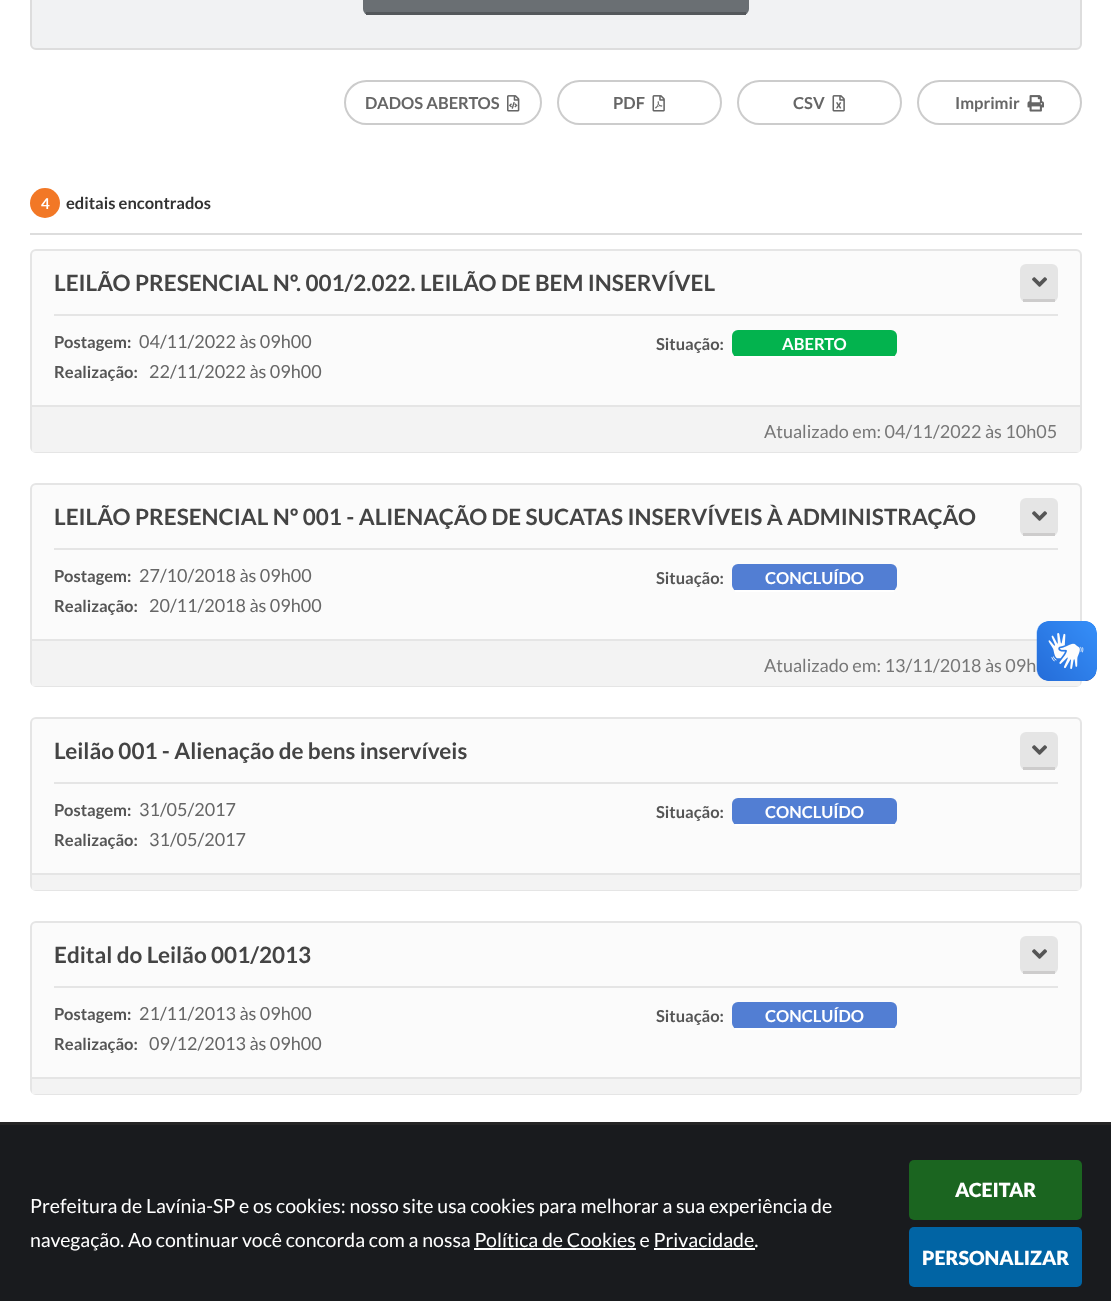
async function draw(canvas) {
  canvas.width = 1111;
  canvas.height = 1301;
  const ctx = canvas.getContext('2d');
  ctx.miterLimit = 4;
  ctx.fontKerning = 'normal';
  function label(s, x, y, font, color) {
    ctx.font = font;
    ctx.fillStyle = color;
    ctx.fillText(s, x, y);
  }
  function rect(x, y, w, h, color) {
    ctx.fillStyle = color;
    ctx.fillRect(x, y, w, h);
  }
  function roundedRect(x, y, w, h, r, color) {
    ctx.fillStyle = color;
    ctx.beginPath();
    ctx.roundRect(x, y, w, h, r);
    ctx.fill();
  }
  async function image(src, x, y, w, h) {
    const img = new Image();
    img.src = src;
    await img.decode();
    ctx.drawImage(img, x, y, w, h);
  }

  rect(0, 0, 1111, 1301, '#fff');
  rect(0, 1122, 1111, 3, '#252525');
  ctx.fillStyle = '#f1f2f3';
  ctx.beginPath();
  ctx.roundRect(31, -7, 1050, 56, 5);
  ctx.fill();
  ctx.strokeStyle = '#ddd';
  ctx.lineWidth = 2;
  ctx.stroke();
  roundedRect(363, -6, 386, 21, 6, '#6a6f73');
  rect(366, 12, 380, 3, '#54585b');
  ctx.beginPath();
  ctx.roundRect(345, 81, 196, 43, 21.5);
  ctx.strokeStyle = '#ccc';
  ctx.stroke();
  label('DADOS ABERTOS', 365, 109, 'bold 16.5px Lato', '#666');
  await image('assets/img1.png', 507, 95, 13, 17);
  ctx.beginPath();
  ctx.roundRect(558, 81, 163, 43, 21.5);
  ctx.stroke();
  label('PDF', 613, 109, 'bold 16.5px Lato', '#666');
  await image('assets/img2.png', 652, 95, 13, 17);
  ctx.beginPath();
  ctx.roundRect(738, 81, 163, 43, 21.5);
  ctx.stroke();
  label('CSV', 793, 109, 'bold 16.5px Lato', '#666');
  await image('assets/img3.png', 832, 95, 13, 17);
  ctx.beginPath();
  ctx.roundRect(918, 81, 163, 43, 21.5);
  ctx.stroke();
  label('Imprimir', 955, 109, 'bold 16.5px Lato', '#666');
  await image('assets/img4.png', 1027, 95, 17, 17);
  rect(30, 233, 1052, 2, '#ddd');
  ctx.fillStyle = '#f27826';
  ctx.beginPath();
  ctx.arc(45, 203, 15, 0, 2 * Math.PI);
  ctx.fill();
  label('4', 41, 209, 'bold 15px Lato', '#fff');
  label('editais encontrados', 66, 209, 'bold 16.5px Lato', '#333');
  ctx.fillStyle = '#fbfbfb';
  ctx.beginPath();
  ctx.roundRect(31, 250, 1050, 202, 5);
  ctx.fill();
  ctx.strokeStyle = '#e5e5e5';
  ctx.stroke();
  rect(54, 314, 1004, 2, '#e5e5e5');
  label('LEILÃO PRESENCIAL Nº. 001/2.022. LEILÃO DE BEM INSERVÍVEL', 54, 291, 'bold 22.5px Lato', '#444');
  label('Postagem:', 54, 348, 'bold 16.5px Lato', '#555');
  label('04/11/2022 às 09h00', 139, 348, '18px Lato', '#666');
  label('Realização:', 54, 378, 'bold 16.5px Lato', '#555');
  label('22/11/2022 às 09h00', 149, 378, '18px Lato', '#666');
  label('Situação:', 656, 350, 'bold 16.5px Lato', '#555');
  roundedRect(732, 330, 165, 27, 6, '#03b34e');
  rect(735, 356, 159, 2, '#fff');
  label('ABERTO', 782, 350, 'bold 16.5px Lato', '#fff');
  roundedRect(1020, 264, 38, 38, 6, '#e5e5e5');
  rect(1023, 299, 32, 3, '#cdcccc');
  await image('assets/img5.png', 1032, 277, 15, 10);
  rect(32, 407, 1048, 45, '#f3f3f3');
  rect(32, 405, 1048, 2, '#e5e5e5');
  label('Atualizado em: 04/11/2022 às 10h05', 764, 438, '18px Lato', '#777');
  ctx.fillStyle = '#fbfbfb';
  ctx.beginPath();
  ctx.roundRect(31, 484, 1050, 202, 5);
  ctx.fill();
  ctx.stroke();
  rect(54, 548, 1004, 2, '#e5e5e5');
  label('LEILÃO PRESENCIAL Nº 001 - ALIENAÇÃO DE SUCATAS INSERVÍVEIS À ADMINISTRAÇÃO', 54, 525, 'bold 22.5px Lato', '#444');
  label('Postagem:', 54, 582, 'bold 16.5px Lato', '#555');
  label('27/10/2018 às 09h00', 139, 582, '18px Lato', '#666');
  label('Realização:', 54, 612, 'bold 16.5px Lato', '#555');
  label('20/11/2018 às 09h00', 149, 612, '18px Lato', '#666');
  label('Situação:', 656, 584, 'bold 16.5px Lato', '#555');
  roundedRect(732, 564, 165, 27, 6, '#527ed3');
  rect(735, 590, 159, 2, '#fff');
  label('CONCLUÍDO', 765, 584, 'bold 16.5px Lato', '#fff');
  roundedRect(1020, 498, 38, 38, 6, '#e5e5e5');
  rect(1023, 533, 32, 3, '#cdcccc');
  await image('assets/img5.png', 1032, 511, 15, 10);
  rect(32, 641, 1048, 45, '#f3f3f3');
  rect(32, 639, 1005, 2, '#e5e5e5');
  label('Atualizado em: 13/11/2018 às 09h', 764, 672, '18px Lato', '#777');
  ctx.fillStyle = '#fbfbfb';
  ctx.beginPath();
  ctx.roundRect(31, 718, 1050, 172, 5);
  ctx.fill();
  ctx.stroke();
  rect(54, 782, 1004, 2, '#e5e5e5');
  label('Leilão 001 - Alienação de bens inservíveis', 54, 759, 'bold 22.5px Lato', '#444');
  label('Postagem:', 54, 816, 'bold 16.5px Lato', '#555');
  label('31/05/2017', 139, 816, '18px Lato', '#666');
  label('Realização:', 54, 846, 'bold 16.5px Lato', '#555');
  label('31/05/2017', 149, 846, '18px Lato', '#666');
  label('Situação:', 656, 818, 'bold 16.5px Lato', '#555');
  roundedRect(732, 798, 165, 27, 6, '#527ed3');
  rect(735, 824, 159, 2, '#fff');
  label('CONCLUÍDO', 765, 818, 'bold 16.5px Lato', '#fff');
  roundedRect(1020, 732, 38, 38, 6, '#e5e5e5');
  rect(1023, 767, 32, 3, '#cdcccc');
  await image('assets/img5.png', 1032, 745, 15, 10);
  rect(32, 875, 1048, 15, '#f3f3f3');
  rect(32, 873, 1048, 2, '#e5e5e5');
  ctx.fillStyle = '#fbfbfb';
  ctx.beginPath();
  ctx.roundRect(31, 922, 1050, 172, 5);
  ctx.fill();
  ctx.stroke();
  rect(54, 986, 1004, 2, '#e5e5e5');
  label('Edital do Leilão 001/2013', 54, 963, 'bold 22.5px Lato', '#444');
  label('Postagem:', 54, 1020, 'bold 16.5px Lato', '#555');
  label('21/11/2013 às 09h00', 139, 1020, '18px Lato', '#666');
  label('Realização:', 54, 1050, 'bold 16.5px Lato', '#555');
  label('09/12/2013 às 09h00', 149, 1050, '18px Lato', '#666');
  label('Situação:', 656, 1022, 'bold 16.5px Lato', '#555');
  roundedRect(732, 1002, 165, 27, 6, '#527ed3');
  rect(735, 1028, 159, 2, '#fff');
  label('CONCLUÍDO', 765, 1022, 'bold 16.5px Lato', '#fff');
  roundedRect(1020, 936, 38, 38, 6, '#e5e5e5');
  rect(1023, 971, 32, 3, '#cdcccc');
  await image('assets/img5.png', 1032, 949, 15, 10);
  rect(32, 1079, 1048, 15, '#f3f3f3');
  rect(32, 1077, 1048, 2, '#e5e5e5');
  rect(0, 1125, 1111, 176, '#191b1e');
  await image('assets/img6.png', 1036, 621, 61, 60);
  await image('assets/img7.png', 1037, 621, 60, 60);
  label('Prefeitura de Lavínia-SP e os cookies: nosso site usa cookies para melhorar a sua experiência de', 30, 1213, '19.5px Lato', '#fff');
  label('navegação. Ao continuar você concorda com a nossa Política de Cookies e Privacidade.', 30, 1247, '19.5px Lato', '#fff');
  rect(474, 1248, 162, 2, '#fff');
  rect(654, 1248, 101, 2, '#fff');
  roundedRect(909, 1160, 173, 60, 5, '#1b6520');
  label('ACEITAR', 955, 1197, '900 19.5px Lato', '#fff');
  roundedRect(909, 1227, 173, 60, 5, '#0164a4');
  label('PERSONALIZAR', 922, 1265, '900 19.5px Lato', '#fff');
}

draw(document.querySelector('canvas'));
